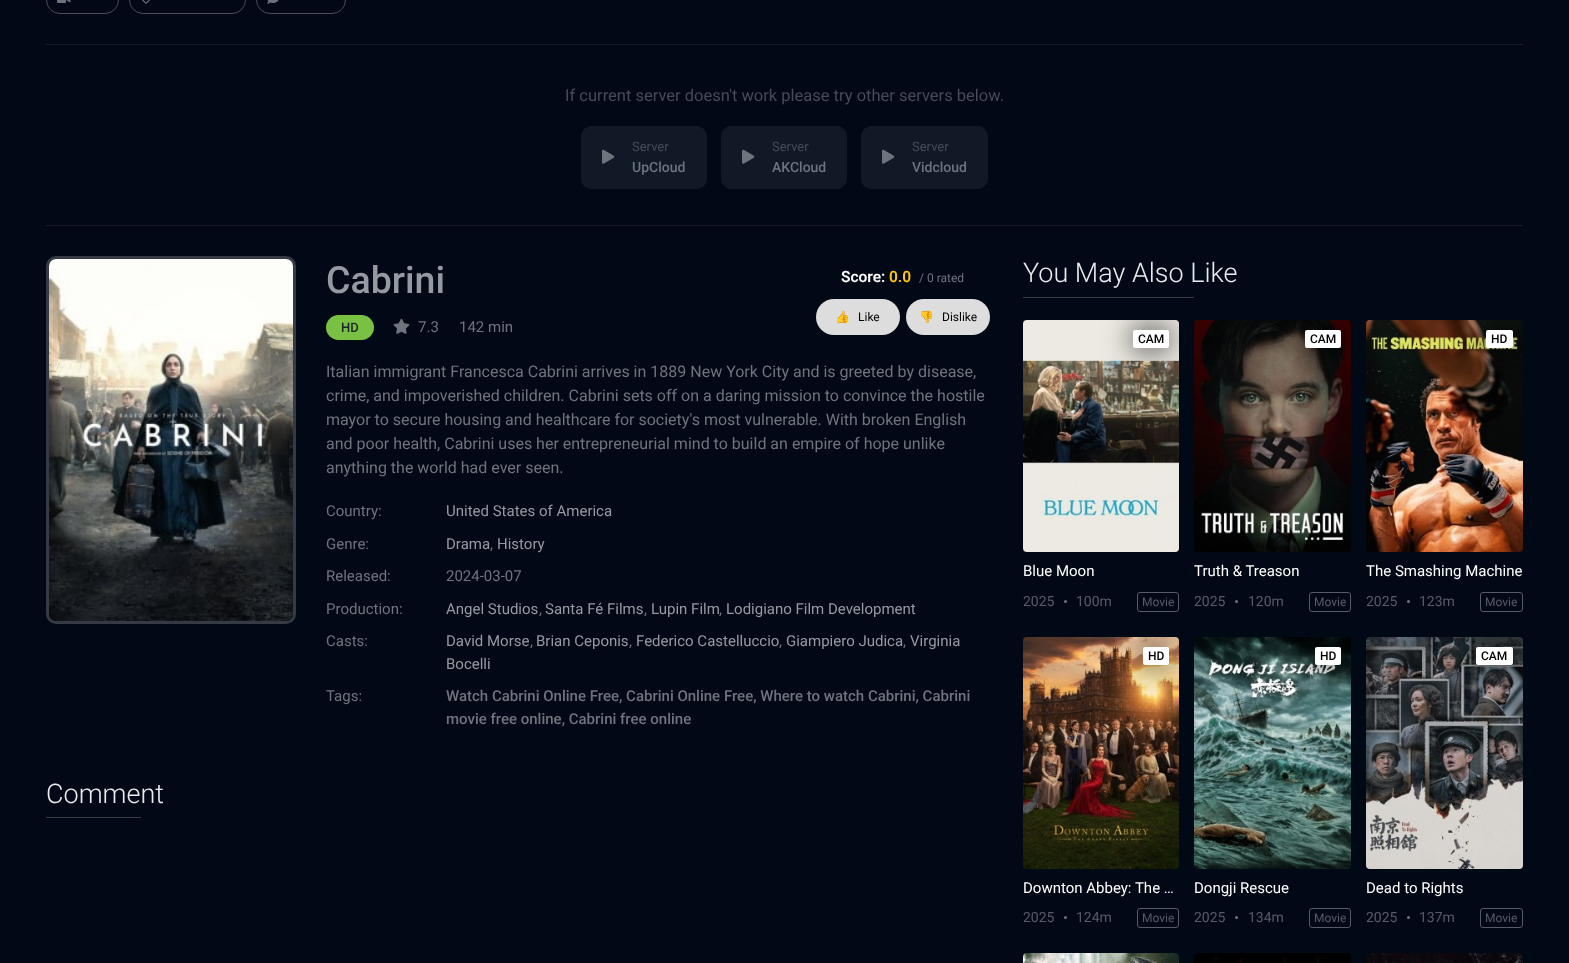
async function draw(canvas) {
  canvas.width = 1569;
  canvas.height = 963;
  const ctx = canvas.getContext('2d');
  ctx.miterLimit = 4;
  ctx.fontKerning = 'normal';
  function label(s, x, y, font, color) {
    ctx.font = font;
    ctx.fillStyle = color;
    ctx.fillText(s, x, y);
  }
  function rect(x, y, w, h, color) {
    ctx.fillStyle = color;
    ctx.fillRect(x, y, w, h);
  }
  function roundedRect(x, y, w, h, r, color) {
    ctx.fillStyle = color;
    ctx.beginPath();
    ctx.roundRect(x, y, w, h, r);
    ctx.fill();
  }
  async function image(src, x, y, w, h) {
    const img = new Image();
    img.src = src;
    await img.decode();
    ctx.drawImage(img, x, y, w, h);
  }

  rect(0, 0, 1569, 963, '#020916');
  ctx.beginPath();
  ctx.roundRect(46.5, -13.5, 72, 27, 13.5);
  ctx.strokeStyle = '#494f54';
  ctx.stroke();
  await image('assets/img1.png', 57, 0, 14, 3);
  ctx.beginPath();
  ctx.roundRect(129.5, -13.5, 116, 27, 13.5);
  ctx.stroke();
  await image('assets/img2.png', 142, 0, 8, 4);
  ctx.beginPath();
  ctx.roundRect(256.5, -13.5, 89, 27, 13.5);
  ctx.stroke();
  await image('assets/img3.png', 267, 0, 12, 4);
  rect(46, 44, 1477, 1, '#161d29');
  rect(46, 225, 1477, 1, '#161d29');
  label('If current server doesn\'t work please try other servers below.', 565, 101, '16.5px Roboto', '#454b57');
  ctx.fillStyle = '#111926';
  ctx.beginPath();
  ctx.roundRect(581.5, 126.5, 125, 62, 9.5);
  ctx.fill();
  ctx.strokeStyle = '#111926';
  ctx.stroke();
  await image('assets/img4.png', 602, 149, 13, 15);
  label('Server', 632, 151, '13px Roboto', '#454b57');
  label('UpCloud', 632, 172, '500 14px Roboto', '#6c757d');
  ctx.fillStyle = '#111926';
  ctx.beginPath();
  ctx.roundRect(721.5, 126.5, 125, 62, 9.5);
  ctx.fill();
  ctx.stroke();
  await image('assets/img4.png', 742, 149, 13, 15);
  label('Server', 772, 151, '13px Roboto', '#454b57');
  label('AKCloud', 772, 172, '500 14px Roboto', '#6c757d');
  ctx.fillStyle = '#111926';
  ctx.beginPath();
  ctx.roundRect(861.5, 126.5, 126, 62, 9.5);
  ctx.fill();
  ctx.stroke();
  await image('assets/img4.png', 882, 149, 13, 15);
  label('Server', 912, 151, '13px Roboto', '#454b57');
  label('Vidcloud', 912, 172, '500 14px Roboto', '#6c757d');
  ctx.beginPath();
  ctx.roundRect(47.5, 257.5, 247, 365, 8.5);
  ctx.strokeStyle = '#353a45';
  ctx.lineWidth = 3;
  ctx.stroke();
  await image('assets/img5.png', 49, 259, 244, 362);
  label('Cabrini', 326, 293, '500 37.5px Roboto', '#939ba2');
  label('Score:', 841, 282, '600 15.5px Roboto', '#fff');
  label('0.0', 889, 282, '600 15.5px Roboto', '#ffc80a');
  label('/ 0 rated', 919, 282, '12px Roboto', '#6c757d');
  roundedRect(816, 299, 84, 36, 18, '#ddd');
  label('👍', 835, 321, '12px Noto Color Emoji', '#000');
  label('Like', 858, 321, '12px Roboto', '#000');
  roundedRect(906, 299, 84, 36, 18, '#ddd');
  label('👎', 919, 321, '12px Noto Color Emoji', '#000');
  label('Dislike', 942, 321, '12px Roboto', '#000');
  roundedRect(326, 315, 48, 25, 12.5, '#79c142');
  label('HD', 341, 332, '500 13px Roboto', '#212529');
  await image('assets/img6.png', 393, 318, 17, 16);
  label('7.3', 418, 332, '15px Roboto', '#6c757d');
  label('142 min', 459, 332, '15px Roboto', '#6c757d');
  label('Italian immigrant Francesca Cabrini arrives in 1889 New York City and is greeted by disease,', 326, 377, '16px Roboto', '#6c757d');
  label('crime, and impoverished children. Cabrini sets off on a daring mission to convince the hostile', 326, 401, '16px Roboto', '#6c757d');
  label('mayor to secure housing and healthcare for society\'s most vulnerable. With broken English', 326, 425, '16px Roboto', '#6c757d');
  label('and poor health, Cabrini uses her entrepreneurial mind to build an empire of hope unlike', 326, 449, '16px Roboto', '#6c757d');
  label('anything the world had ever seen.', 326, 473, '16px Roboto', '#6c757d');
  label('Country:', 326, 516, '15px Roboto', '#6c757d');
  label('United States of America', 446, 516, '15px Roboto', '#939ba2');
  label('Genre:', 326, 549, '15px Roboto', '#6c757d');
  label('Drama', 446, 549, '15px Roboto', '#939ba2');
  label(',', 490, 549, '15px Roboto', '#6c757d');
  label('History', 497, 549, '15px Roboto', '#939ba2');
  label('Released:', 326, 581, '15px Roboto', '#6c757d');
  label('2024-03-07', 446, 581, '15px Roboto', '#6c757d');
  label('Production:', 326, 614, '15px Roboto', '#6c757d');
  label('Angel Studios', 446, 614, '15px Roboto', '#939ba2');
  label(',', 539, 614, '15px Roboto', '#6c757d');
  label('Santa Fé Films', 545, 614, '15px Roboto', '#939ba2');
  label(',', 644, 614, '15px Roboto', '#6c757d');
  label('Lupin Film', 651, 614, '15px Roboto', '#939ba2');
  label(',', 719, 614, '15px Roboto', '#6c757d');
  label('Lodigiano Film Development', 726, 614, '15px Roboto', '#939ba2');
  label('Casts:', 326, 646, '15px Roboto', '#6c757d');
  label('David Morse', 446, 646, '15px Roboto', '#939ba2');
  label(',', 530, 646, '15px Roboto', '#6c757d');
  label('Brian Ceponis', 536, 646, '15px Roboto', '#939ba2');
  label(',', 629, 646, '15px Roboto', '#6c757d');
  label('Federico Castelluccio', 636, 646, '15px Roboto', '#939ba2');
  label(',', 779, 646, '15px Roboto', '#6c757d');
  label('Giampiero Judica', 786, 646, '15px Roboto', '#939ba2');
  label(',', 903, 646, '15px Roboto', '#6c757d');
  label('Virginia', 910, 646, '15px Roboto', '#939ba2');
  label('Bocelli', 446, 669, '15px Roboto', '#939ba2');
  label('Tags:', 326, 701, '15px Roboto', '#6c757d');
  label('Watch Cabrini Online Free, Cabrini Online Free, Where to watch Cabrini, Cabrini', 446, 701, '500 15px Roboto', '#6c757d');
  label('movie free online, Cabrini free online', 446, 724, '500 15px Roboto', '#6c757d');
  label('Comment', 46, 803, '300 27px Roboto', '#e9ecef');
  rect(46, 817, 95, 1, '#343a40');
  label('You May Also Like', 1023, 282, '300 27px Roboto', '#e9ecef');
  rect(1023, 297, 171, 1, '#343a40');
  await image('assets/img7.png', 1023, 320, 156, 232);
  await image('assets/img8.png', 1194, 320, 157, 232);
  ctx.save();
  ctx.beginPath();
  ctx.roundRect(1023, 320, 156, 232, 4);
  ctx.clip();
  ctx.fillStyle = '#000';
  ctx.filter = 'blur(15px)';
  ctx.beginPath();
  ctx.roundRect(1133, 330, 36, 18, 2);
  ctx.fill();
  ctx.filter = 'none';
  ctx.restore();
  roundedRect(1133, 330, 36, 18, 2, '#fff');
  label('CAM', 1138, 343, '500 12px Roboto', '#000');
  label('Blue Moon', 1023, 576, '15px Roboto', '#fff');
  label('2025', 1023, 606, '14px Roboto', '#565c67');
  ctx.fillStyle = '#6d7583';
  ctx.beginPath();
  ctx.arc(1065.5, 601.5, 1.5, 0, 2 * Math.PI);
  ctx.fill();
  label('100m', 1076, 606, '14px Roboto', '#565c67');
  ctx.beginPath();
  ctx.roundRect(1137.5, 592.5, 41, 19, 2.5);
  ctx.strokeStyle = '#565c67';
  ctx.lineWidth = 1;
  ctx.stroke();
  label('Movie', 1142, 606, '12px Roboto', '#565c67');
  await image('assets/img9.png', 1366, 320, 157, 232);
  ctx.save();
  ctx.beginPath();
  ctx.roundRect(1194, 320, 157, 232, 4);
  ctx.clip();
  ctx.fillStyle = '#000';
  ctx.filter = 'blur(15px)';
  ctx.beginPath();
  ctx.roundRect(1305, 330, 36, 18, 2);
  ctx.fill();
  ctx.filter = 'none';
  ctx.restore();
  roundedRect(1305, 330, 36, 18, 2, '#fff');
  label('CAM', 1310, 343, '500 12px Roboto', '#000');
  label('Truth & Treason', 1194, 576, '15px Roboto', '#fff');
  label('2025', 1194, 606, '14px Roboto', '#565c67');
  ctx.fillStyle = '#6d7583';
  ctx.beginPath();
  ctx.arc(1236.5, 601.5, 1.5, 0, 2 * Math.PI);
  ctx.fill();
  label('120m', 1248, 606, '14px Roboto', '#565c67');
  ctx.beginPath();
  ctx.roundRect(1309.5, 592.5, 41, 19, 2.5);
  ctx.stroke();
  label('Movie', 1314, 606, '12px Roboto', '#565c67');
  ctx.save();
  ctx.beginPath();
  ctx.roundRect(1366, 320, 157, 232, 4);
  ctx.clip();
  ctx.fillStyle = '#000';
  ctx.filter = 'blur(15px)';
  ctx.beginPath();
  ctx.roundRect(1486, 330, 27, 18, 2);
  ctx.fill();
  ctx.filter = 'none';
  ctx.restore();
  roundedRect(1486, 330, 27, 18, 2, '#fff');
  label('HD', 1491, 343, '500 12px Roboto', '#000');
  label('The Smashing Machine', 1366, 576, '15px Roboto', '#fff');
  label('2025', 1366, 606, '14px Roboto', '#565c67');
  ctx.fillStyle = '#6d7583';
  ctx.beginPath();
  ctx.arc(1408.5, 601.5, 1.5, 0, 2 * Math.PI);
  ctx.fill();
  label('123m', 1419, 606, '14px Roboto', '#565c67');
  ctx.beginPath();
  ctx.roundRect(1480.5, 592.5, 42, 19, 2.5);
  ctx.stroke();
  label('Movie', 1485, 606, '12px Roboto', '#565c67');
  await image('assets/img10.png', 1023, 637, 156, 232);
  await image('assets/img11.png', 1194, 637, 157, 232);
  ctx.save();
  ctx.beginPath();
  ctx.roundRect(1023, 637, 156, 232, 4);
  ctx.clip();
  ctx.fillStyle = '#000';
  ctx.filter = 'blur(15px)';
  ctx.beginPath();
  ctx.roundRect(1143, 647, 26, 18, 2);
  ctx.fill();
  ctx.filter = 'none';
  ctx.restore();
  roundedRect(1143, 647, 26, 18, 2, '#fff');
  label('HD', 1148, 660, '500 12px Roboto', '#000');
  label('Downton Abbey: The …', 1023, 893, '15px Roboto', '#fff');
  label('2025', 1023, 922, '14px Roboto', '#565c67');
  ctx.fillStyle = '#6d7583';
  ctx.beginPath();
  ctx.arc(1065.5, 917.5, 1.5, 0, 2 * Math.PI);
  ctx.fill();
  label('124m', 1076, 922, '14px Roboto', '#565c67');
  ctx.beginPath();
  ctx.roundRect(1137.5, 908.5, 41, 19, 2.5);
  ctx.stroke();
  label('Movie', 1142, 922, '12px Roboto', '#565c67');
  await image('assets/img12.png', 1366, 637, 157, 232);
  ctx.save();
  ctx.beginPath();
  ctx.roundRect(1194, 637, 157, 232, 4);
  ctx.clip();
  ctx.fillStyle = '#000';
  ctx.filter = 'blur(15px)';
  ctx.beginPath();
  ctx.roundRect(1315, 647, 26, 18, 2);
  ctx.fill();
  ctx.filter = 'none';
  ctx.restore();
  roundedRect(1315, 647, 26, 18, 2, '#fff');
  label('HD', 1320, 660, '500 12px Roboto', '#000');
  label('Dongji Rescue', 1194, 893, '15px Roboto', '#fff');
  label('2025', 1194, 922, '14px Roboto', '#565c67');
  ctx.fillStyle = '#6d7583';
  ctx.beginPath();
  ctx.arc(1236.5, 917.5, 1.5, 0, 2 * Math.PI);
  ctx.fill();
  label('134m', 1248, 922, '14px Roboto', '#565c67');
  ctx.beginPath();
  ctx.roundRect(1309.5, 908.5, 41, 19, 2.5);
  ctx.stroke();
  label('Movie', 1314, 922, '12px Roboto', '#565c67');
  ctx.save();
  ctx.beginPath();
  ctx.roundRect(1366, 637, 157, 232, 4);
  ctx.clip();
  ctx.fillStyle = '#000';
  ctx.filter = 'blur(15px)';
  ctx.beginPath();
  ctx.roundRect(1476, 647, 37, 18, 2);
  ctx.fill();
  ctx.filter = 'none';
  ctx.restore();
  roundedRect(1476, 647, 37, 18, 2, '#fff');
  label('CAM', 1481, 660, '500 12px Roboto', '#000');
  label('Dead to Rights', 1366, 893, '15px Roboto', '#fff');
  label('2025', 1366, 922, '14px Roboto', '#565c67');
  ctx.fillStyle = '#6d7583';
  ctx.beginPath();
  ctx.arc(1408.5, 917.5, 1.5, 0, 2 * Math.PI);
  ctx.fill();
  label('137m', 1419, 922, '14px Roboto', '#565c67');
  ctx.beginPath();
  ctx.roundRect(1480.5, 908.5, 42, 19, 2.5);
  ctx.stroke();
  label('Movie', 1485, 922, '12px Roboto', '#565c67');
  await image('assets/img13.png', 1023, 953, 156, 10);
  await image('assets/img14.png', 1194, 953, 157, 10);
  ctx.save();
  ctx.beginPath();
  ctx.roundRect(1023, 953, 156, 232, 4);
  ctx.clip();
  ctx.fillStyle = '#000';
  ctx.filter = 'blur(15px)';
  ctx.beginPath();
  ctx.roundRect(1143, 963, 26, 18, 2);
  ctx.fill();
  ctx.filter = 'none';
  ctx.restore();
  await image('assets/img15.png', 1366, 953, 157, 10);
  ctx.save();
  ctx.beginPath();
  ctx.roundRect(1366, 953, 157, 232, 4);
  ctx.clip();
  ctx.fillStyle = '#000';
  ctx.filter = 'blur(15px)';
  ctx.beginPath();
  ctx.roundRect(1486, 963, 27, 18, 2);
  ctx.fill();
  ctx.filter = 'none';
  ctx.restore();
}

draw(document.querySelector('canvas'));
